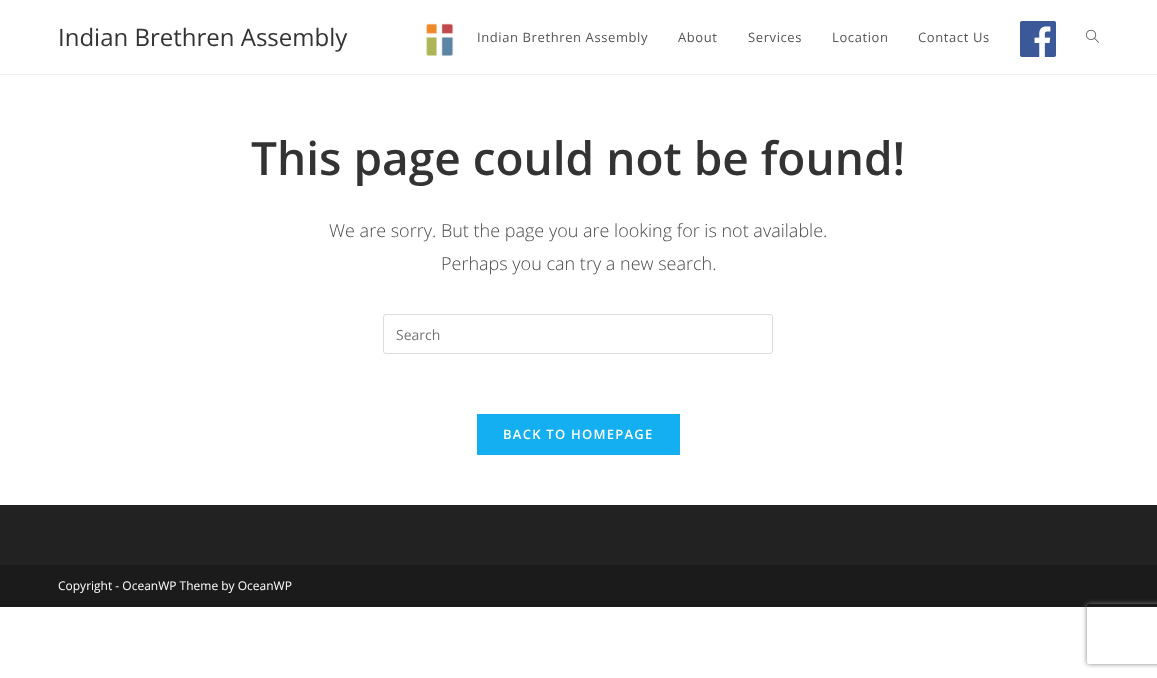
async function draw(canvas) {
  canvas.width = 1157;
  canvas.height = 678;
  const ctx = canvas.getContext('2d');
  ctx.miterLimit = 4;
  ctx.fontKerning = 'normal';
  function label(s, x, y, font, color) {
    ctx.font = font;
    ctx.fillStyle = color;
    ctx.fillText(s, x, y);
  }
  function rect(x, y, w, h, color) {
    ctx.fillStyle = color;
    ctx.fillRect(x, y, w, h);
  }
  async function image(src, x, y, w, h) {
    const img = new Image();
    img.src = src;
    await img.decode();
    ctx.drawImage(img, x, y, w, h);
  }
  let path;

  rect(0, 0, 1157, 678, '#fff');
  rect(0, 74, 1157, 1, '#f1f1f1');
  label('Indian Brethren Assembly', 58, 46, '24px Open Sans', '#333');
  await image('assets/img1.png', 426, 23, 28, 34);
  ctx.letterSpacing = '0.6px';
  label('Indian Brethren Assembly', 477, 42, '13px Open Sans', '#555');
  label('About', 678, 42, '13px Open Sans', '#555');
  label('Services', 748, 42, '13px Open Sans', '#555');
  label('Location', 832, 42, '13px Open Sans', '#555');
  label('Contact Us', 918, 42, '13px Open Sans', '#555');
  await image('assets/img2.png', 1020, 21, 36, 36);
  await image('assets/img3.png', 1086, 29, 13, 14);
  ctx.letterSpacing = '0px';
  label('This page could not be found!', 251, 175, '600 46px Open Sans', '#333');
  label('We are sorry. But the page you are looking for is not available.', 329, 237, '300 18px Open Sans', '#4a4a4a');
  label('Perhaps you can try a new search.', 441, 270, '300 18px Open Sans', '#4a4a4a');
  ctx.beginPath();
  ctx.roundRect(383.5, 314.5, 389, 39, 2.5);
  ctx.strokeStyle = '#ddd';
  ctx.stroke();
  label('Search', 396, 340, '14px Open Sans', '#757575');
  rect(477, 414, 203, 41, '#13aff0');
  ctx.letterSpacing = '1.25px';
  label('BACK TO HOMEPAGE', 503, 439, '600 13px Open Sans', '#fff');
  rect(0, 505, 1157, 60, '#222');
  rect(0, 565, 1157, 42, '#1b1b1b');
  ctx.letterSpacing = '0px';
  label('Copyright - OceanWP Theme by OceanWP', 58, 590, '12px Open Sans', '#fff');
  ctx.save();
  path = new Path2D('M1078 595H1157V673H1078ZM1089 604H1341C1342 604 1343 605 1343 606V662C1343 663 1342 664 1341 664H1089C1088 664 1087 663 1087 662V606C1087 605 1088 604 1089 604Z');
  ctx.clip(path, 'evenodd');
  ctx.fillStyle = '#808080';
  ctx.filter = 'blur(2.5px)';
  ctx.beginPath();
  ctx.roundRect(1087, 604, 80, 60, 2);
  ctx.fill();
  ctx.filter = 'none';
  ctx.restore();
}

draw(document.querySelector('canvas'));
